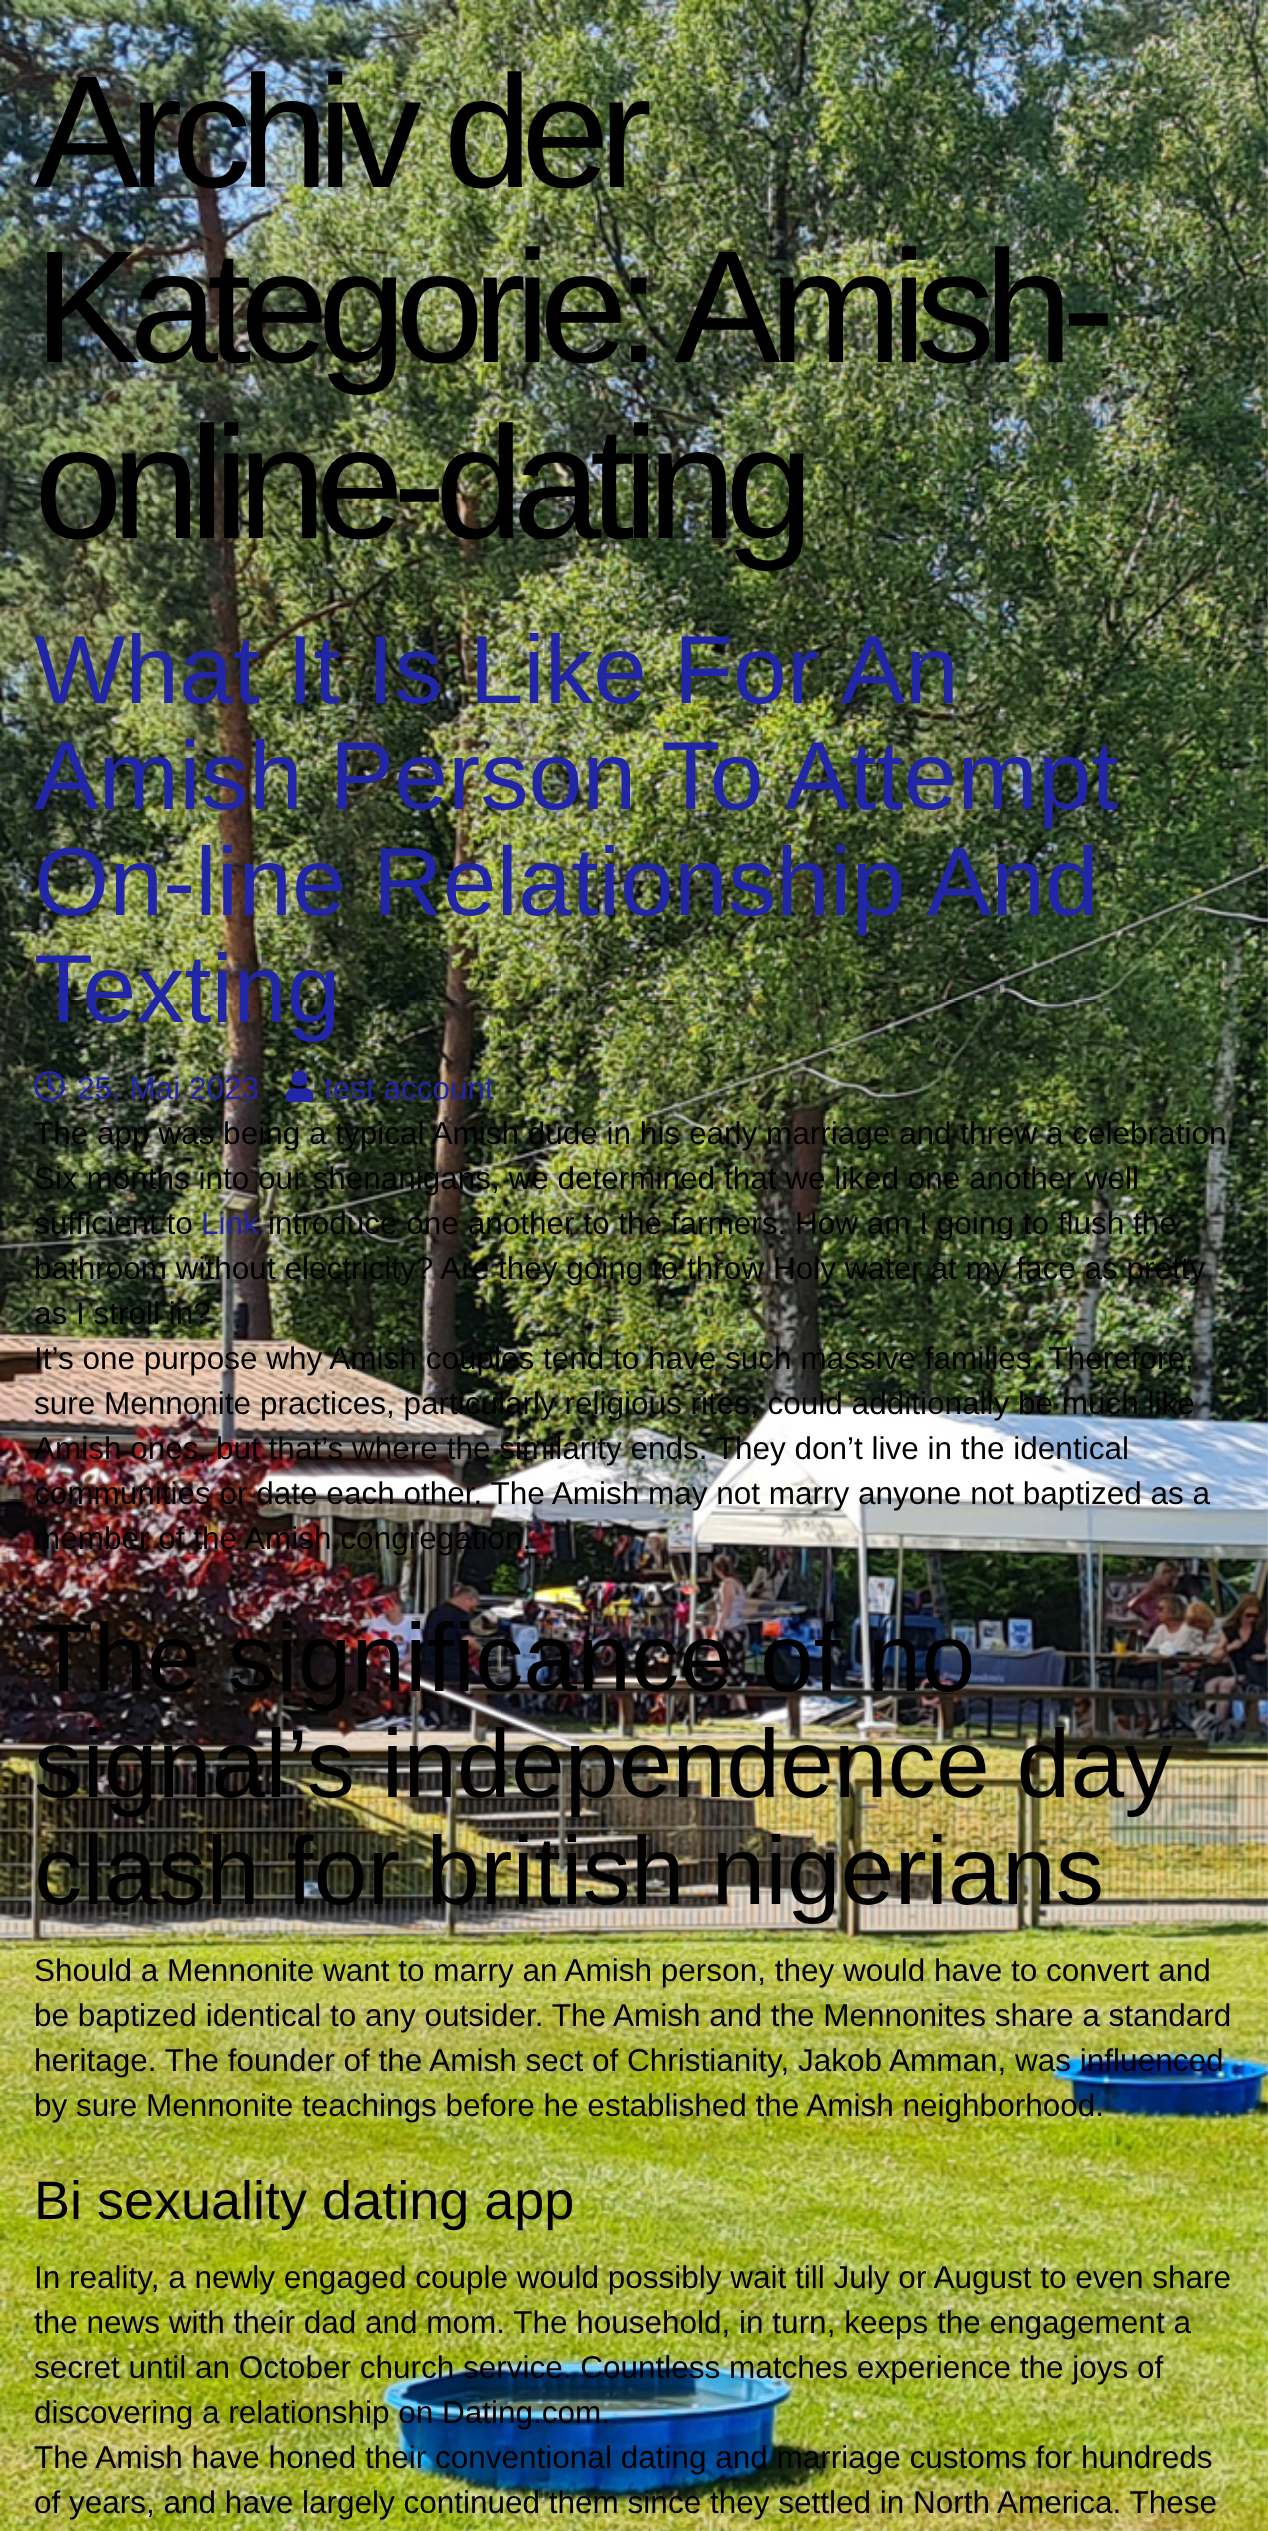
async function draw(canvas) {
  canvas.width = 1268;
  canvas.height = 2531;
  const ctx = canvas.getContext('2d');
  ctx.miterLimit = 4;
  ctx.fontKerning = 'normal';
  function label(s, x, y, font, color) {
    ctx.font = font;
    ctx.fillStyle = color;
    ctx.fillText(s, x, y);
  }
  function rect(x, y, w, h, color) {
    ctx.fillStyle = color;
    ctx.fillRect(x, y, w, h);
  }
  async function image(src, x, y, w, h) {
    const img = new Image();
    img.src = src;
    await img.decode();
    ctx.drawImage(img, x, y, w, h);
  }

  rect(0, 0, 1268, 2531, '#fff');
  await image('assets/img1.png', 0, 0, 1268, 2531);
  ctx.letterSpacing = '-11.25px';
  label('Archiv der', 34, 187, '159.75px Liberation Sans', '#000');
  label('Kategorie: Amish-', 34, 362, '159.75px Liberation Sans', '#000');
  label('online-dating', 34, 538, '159.75px Liberation Sans', '#000');
  ctx.letterSpacing = '0px';
  label('What It Is Like For An', 34, 703, '96.75px Liberation Sans', '#2126a7');
  label('Amish Person To Attempt', 34, 809, '96.75px Liberation Sans', '#2126a7');
  label('On-line Relationship And', 34, 915, '96.75px Liberation Sans', '#2126a7');
  label('Texting', 34, 1022, '96.75px Liberation Sans', '#2126a7');
  await image('assets/img2.png', 34, 1070, 31, 32);
  label('25. Mai 2023', 77, 1099, '31.5px Liberation Sans', '#2126a7');
  await image('assets/img3.png', 285, 1070, 29, 32);
  label('test account', 324, 1099, '31.5px Liberation Sans', '#2126a7');
  label('The app was being a typical Amish dude in his early marriage and threw a celebration.', 34, 1144, '31.5px Liberation Sans', '#000');
  label('Six months into our shenanigans, we determined that we liked one another well', 34, 1189, '31.5px Liberation Sans', '#000');
  label('sufficient to', 34, 1234, '31.5px Liberation Sans', '#000');
  label('Link', 201, 1234, '31.5px Liberation Sans', '#2126a7');
  label('introduce one another to the farmers. How am I going to flush the', 268, 1234, '31.5px Liberation Sans', '#000');
  label('bathroom without electricity? Are they going to throw Holy water at my face as pretty', 34, 1279, '31.5px Liberation Sans', '#000');
  label('as I stroll in?', 34, 1324, '31.5px Liberation Sans', '#000');
  label('It’s one purpose why Amish couples tend to have such massive families. Therefore,', 34, 1369, '31.5px Liberation Sans', '#000');
  label('sure Mennonite practices, particularly religious rites, could additionally be much like', 34, 1414, '31.5px Liberation Sans', '#000');
  label('Amish ones, but that’s where the similarity ends. They don’t live in the identical', 34, 1459, '31.5px Liberation Sans', '#000');
  label('communities or date each other. The Amish may not marry anyone not baptized as a', 34, 1504, '31.5px Liberation Sans', '#000');
  label('member of the Amish congregation.', 34, 1549, '31.5px Liberation Sans', '#000');
  label('The significance of no', 34, 1691, '96.75px Liberation Sans', '#000');
  label('signal’s independence day', 34, 1797, '96.75px Liberation Sans', '#000');
  label('clash for british nigerians', 34, 1904, '96.75px Liberation Sans', '#000');
  label('Should a Mennonite want to marry an Amish person, they would have to convert and', 34, 1981, '31.5px Liberation Sans', '#000');
  label('be baptized identical to any outsider. The Amish and the Mennonites share a standard', 34, 2026, '31.5px Liberation Sans', '#000');
  label('heritage. The founder of the Amish sect of Christianity, Jakob Amman, was influenced', 34, 2071, '31.5px Liberation Sans', '#000');
  label('by sure Mennonite teachings before he established the Amish neighborhood.', 34, 2116, '31.5px Liberation Sans', '#000');
  label('Bi sexuality dating app', 34, 2219, '54px Liberation Sans', '#000');
  label('In reality, a newly engaged couple would possibly wait till July or August to even share', 34, 2288, '31.5px Liberation Sans', '#000');
  label('the news with their dad and mom. The household, in turn, keeps the engagement a', 34, 2333, '31.5px Liberation Sans', '#000');
  label('secret until an October church service. Countless matches experience the joys of', 34, 2378, '31.5px Liberation Sans', '#000');
  label('discovering a relationship on Dating.com.', 34, 2423, '31.5px Liberation Sans', '#000');
  label('The Amish have honed their conventional dating and marriage customs for hundreds', 34, 2468, '31.5px Liberation Sans', '#000');
  label('of years, and have largely continued them since they settled in North America. These', 34, 2513, '31.5px Liberation Sans', '#000');
}

draw(document.querySelector('canvas'));
